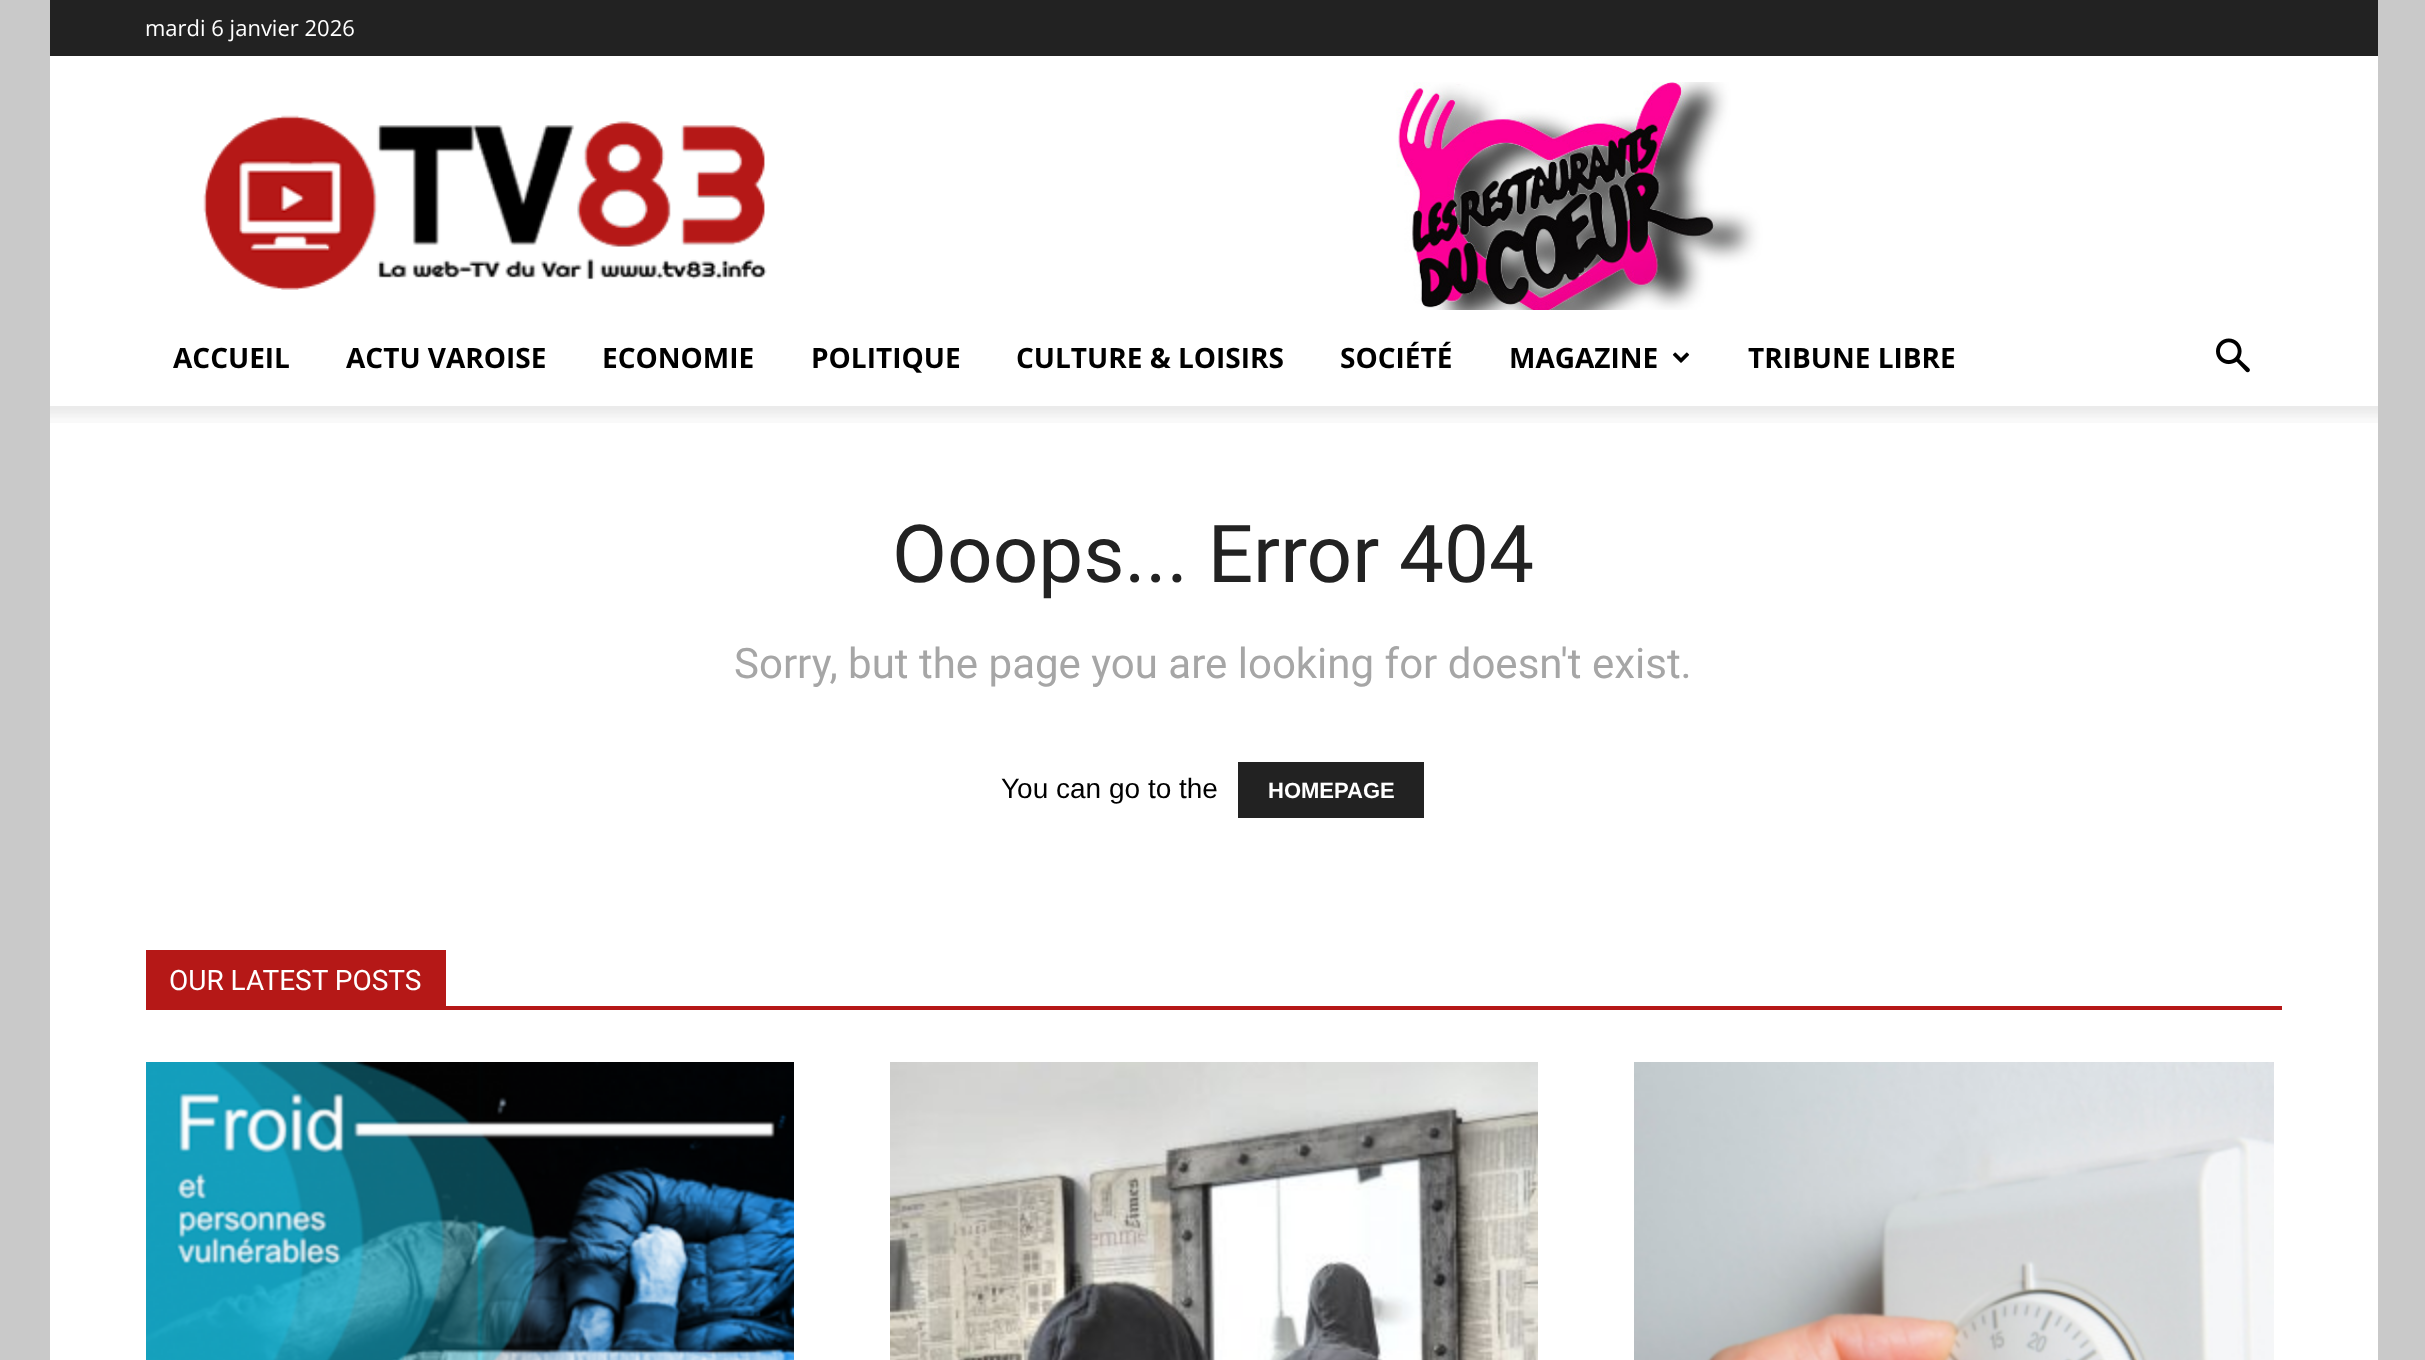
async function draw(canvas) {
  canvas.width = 2425;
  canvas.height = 1360;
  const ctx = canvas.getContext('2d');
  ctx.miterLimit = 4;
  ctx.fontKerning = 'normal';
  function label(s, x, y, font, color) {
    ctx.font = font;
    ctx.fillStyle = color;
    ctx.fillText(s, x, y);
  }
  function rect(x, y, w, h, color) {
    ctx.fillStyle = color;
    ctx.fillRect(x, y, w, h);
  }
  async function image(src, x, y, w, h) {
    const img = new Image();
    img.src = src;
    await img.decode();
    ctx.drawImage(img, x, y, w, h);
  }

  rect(0, 0, 2425, 1360, '#c9c9c9');
  rect(50, 0, 2328, 56, '#222');
  label('mardi 6 janvier 2026', 145, 36, '22px Open Sans', '#fff');
  rect(50, 56, 2328, 350, '#fff');
  await image('assets/img1.png', 203, 115, 564, 175);
  await image('assets/img2.png', 1260, 82, 586, 228);
  label('ACCUEIL', 173, 368, 'bold 28px Open Sans', '#000');
  label('ACTU VAROISE', 346, 368, 'bold 28px Open Sans', '#000');
  label('ECONOMIE', 602, 368, 'bold 28px Open Sans', '#000');
  label('POLITIQUE', 811, 368, 'bold 28px Open Sans', '#000');
  label('CULTURE & LOISIRS', 1016, 368, 'bold 28px Open Sans', '#000');
  label('SOCIÉTÉ', 1340, 368, 'bold 28px Open Sans', '#000');
  label('MAGAZINE', 1509, 368, 'bold 28px Open Sans', '#000');
  await image('assets/img3.png', 1672, 352, 18, 11);
  label('TRIBUNE LIBRE', 1748, 368, 'bold 28px Open Sans', '#000');
  await image('assets/img4.png', 2216, 338, 34, 35);
  rect(50, 406, 2328, 954, '#fff');
  await image('assets/img5.png', 50, 406, 2328, 17);
  label('Ooops... Error 404', 892, 582, '80px Roboto', '#222');
  label('Sorry, but the page you are looking for doesn\'t exist.', 734, 678, '42px Roboto', '#a6a6a6');
  label('You can go to the', 1001, 798, '28px Liberation Sans', '#000');
  rect(1238, 762, 186, 56, '#222');
  label('HOMEPAGE', 1268, 798, 'bold 22px Liberation Sans', '#fff');
  rect(146, 1006, 2136, 4, '#b51817');
  rect(146, 950, 300, 56, '#b51817');
  label('OUR LATEST POSTS', 169, 990, '28px Roboto', '#fff');
  await image('assets/img6.png', 146, 1062, 648, 298);
  await image('assets/img7.png', 890, 1062, 648, 298);
  await image('assets/img8.png', 1634, 1062, 640, 298);
}

draw(document.querySelector('canvas'));
